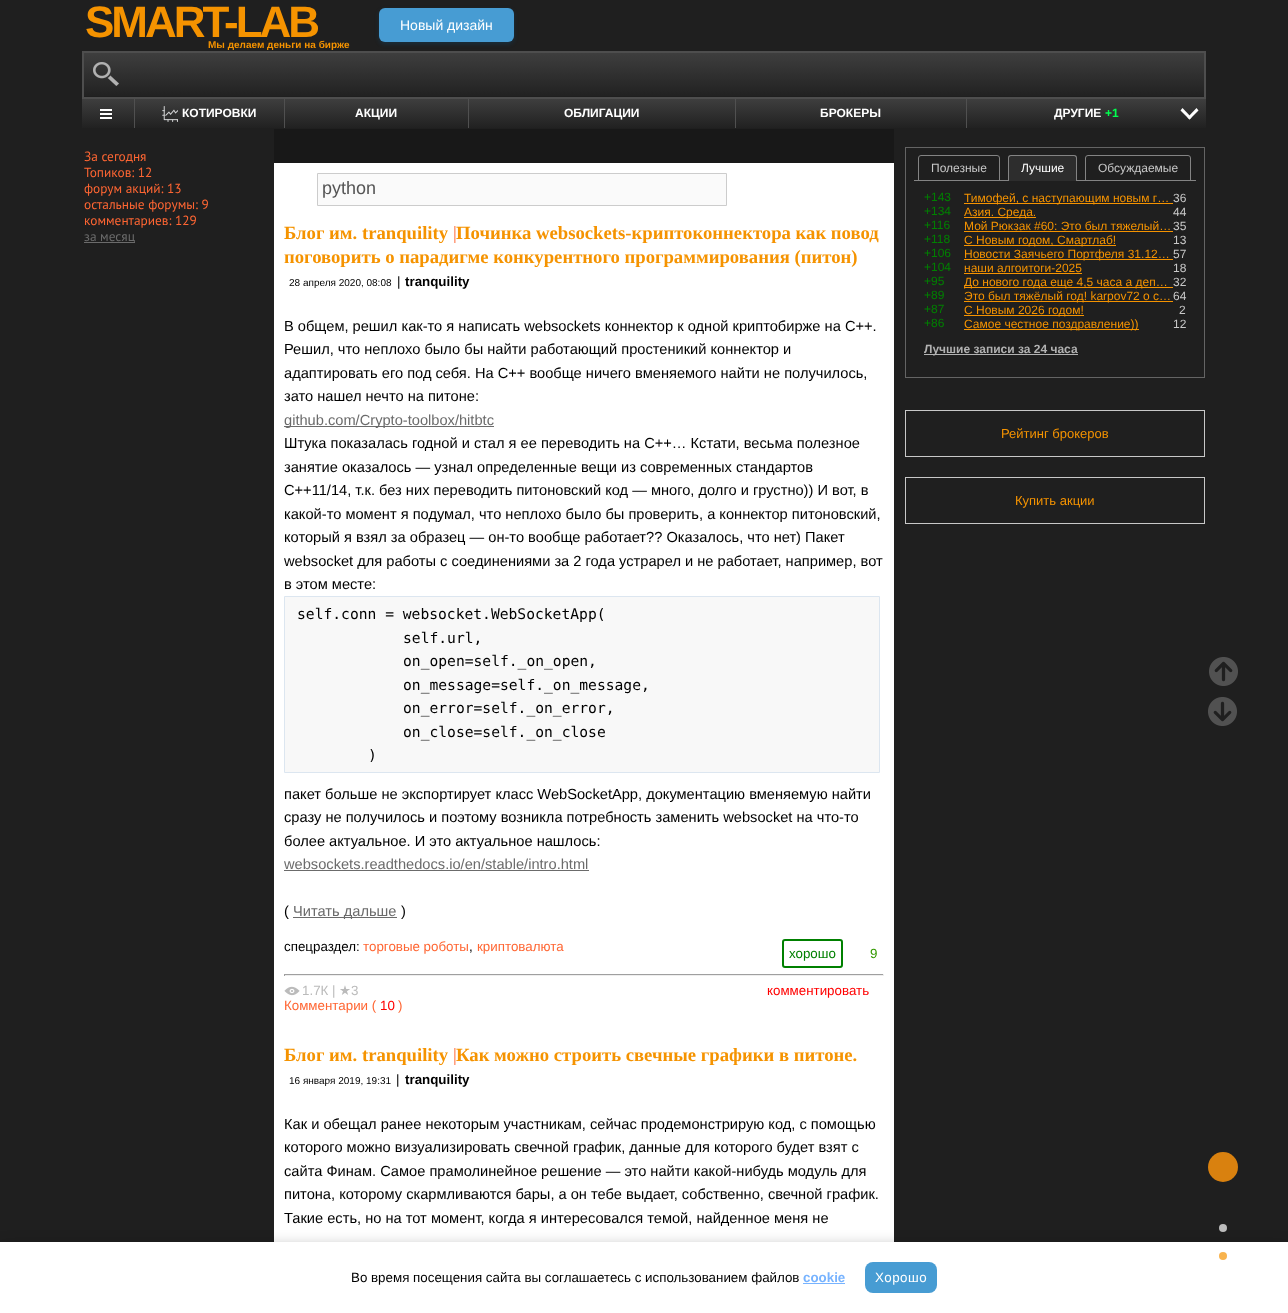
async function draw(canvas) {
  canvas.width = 1288;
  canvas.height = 1313;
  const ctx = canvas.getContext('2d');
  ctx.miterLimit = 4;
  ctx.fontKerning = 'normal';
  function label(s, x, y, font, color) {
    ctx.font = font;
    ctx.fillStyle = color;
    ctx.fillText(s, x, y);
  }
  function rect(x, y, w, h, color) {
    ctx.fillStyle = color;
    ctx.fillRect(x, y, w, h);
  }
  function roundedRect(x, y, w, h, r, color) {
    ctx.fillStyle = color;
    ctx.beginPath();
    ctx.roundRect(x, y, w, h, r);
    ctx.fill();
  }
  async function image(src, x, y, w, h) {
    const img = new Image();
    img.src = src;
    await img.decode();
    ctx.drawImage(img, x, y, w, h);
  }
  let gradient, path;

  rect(0, 0, 1288, 1313, '#1f1f1f');
  ctx.letterSpacing = '-3px';
  label('SMART-LAB', 85, 37, 'bold 44px Liberation Sans', '#f59300');
  ctx.letterSpacing = '0px';
  label('Мы делаем деньги на бирже', 208, 48, 'bold 10px Liberation Sans', '#f59300');
  ctx.fillStyle = '#0b54834d';
  ctx.filter = 'blur(2px)';
  ctx.beginPath();
  ctx.roundRect(379, 10, 135, 34, 6);
  ctx.fill();
  ctx.filter = 'none';
  roundedRect(379, 8, 135, 34, 6, '#479cd3');
  label('Новый дизайн', 400, 30, '14px Liberation Sans', '#fff');
  ctx.fillStyle = '#d9810f';
  ctx.beginPath();
  ctx.arc(1223, 1167, 15, 0, 2 * Math.PI);
  ctx.fill();
  rect(274, 163, 620, 1079, '#fff');
  ctx.fillStyle = '#00000059';
  ctx.filter = 'blur(7.5px)';
  ctx.beginPath();
  ctx.rect(0, 1247, 1288, 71);
  ctx.fill();
  ctx.filter = 'none';
  ctx.fillStyle = '#bcbcbc';
  ctx.beginPath();
  ctx.arc(1223, 1228, 4, 0, 2 * Math.PI);
  ctx.fill();
  rect(0, 1242, 1288, 71, '#fff');
  ctx.fillStyle = '#f8b34d';
  ctx.beginPath();
  ctx.arc(1223, 1256, 4, 0, 2 * Math.PI);
  ctx.fill();
  gradient = ctx.createLinearGradient(644, 53, 644, 97);
  gradient.addColorStop(0, '#3e3e3e');
  gradient.addColorStop(1, '#212121');
  ctx.fillStyle = gradient;
  ctx.fillRect(84, 53, 1120, 43);
  ctx.strokeStyle = '#4e4e4e';
  ctx.lineWidth = 2;
  ctx.strokeRect(83, 52, 1122, 46);
  await image('assets/img1.png', 93, 62, 26, 24);
  gradient = ctx.createLinearGradient(644, 99, 644, 128);
  gradient.addColorStop(0, '#3e3e3e');
  gradient.addColorStop(1, '#212121');
  ctx.fillStyle = gradient;
  ctx.fillRect(82, 99, 1124, 29);
  await image('assets/img2.png', 100, 109, 12, 10);
  rect(134, 99, 1, 29, '#505050');
  await image('assets/img3.png', 162, 106, 16, 16);
  label('КОТИРОВКИ', 182, 117, 'bold 12px Liberation Sans', '#fff');
  rect(284, 99, 1, 29, '#505050');
  label('АКЦИИ', 355, 117, 'bold 12px Liberation Sans', '#fff');
  rect(468, 99, 1, 29, '#505050');
  label('ОБЛИГАЦИИ', 564, 117, 'bold 12px Liberation Sans', '#fff');
  rect(735, 99, 1, 29, '#505050');
  label('БРОКЕРЫ', 820, 117, 'bold 12px Liberation Sans', '#fff');
  rect(966, 99, 1, 29, '#505050');
  label('ДРУГИЕ', 1054, 117, 'bold 12px Liberation Sans', '#fff');
  label('+1', 1105, 117, 'bold 12px Liberation Sans', '#00ff4e');
  ctx.fillStyle = '#fff';
  path = new Path2D('M1196.5 108L1198.5 110.5L1189.5 119.5L1187.5 117.5Z');
  ctx.fill(path);
  path = new Path2D('M1182.5 108L1191.5 117.5L1189.5 119.5L1180.5 110.5Z');
  ctx.fill(path);
  label('За сегодня', 84, 161, '13.35px PT Sans', '#f63');
  label('Топиков: 12', 84, 177, '13.35px PT Sans', '#f63');
  label('форум акций: 13', 84, 193, '13.35px PT Sans', '#f63');
  label('остальные форумы: 9', 84, 209, '13.35px PT Sans', '#f63');
  label('комментариев: 129', 84, 225, '13.35px PT Sans', '#f63');
  rect(84, 242, 51, 1, '#6b6b6b');
  label('за месяц', 84, 241, '13.35px PT Sans', '#6b6b6b');
  rect(274, 129, 620, 34, '#181818');
  ctx.fillStyle = '#fafafa';
  ctx.beginPath();
  ctx.rect(317.5, 173.5, 409, 32);
  ctx.fill();
  ctx.strokeStyle = '#ccc';
  ctx.lineWidth = 1;
  ctx.stroke();
  label('python', 322, 194, '18px Liberation Sans', '#555');
  label('Блог им. tranquility', 284, 239, 'bold 18.7px Liberation Serif', '#f59300');
  label('|', 453, 239, '18.7px Liberation Serif', '#f63');
  label('Починка websockets-криптоконнектора как повод', 456, 239, 'bold 18.7px Liberation Serif', '#f59300');
  label('поговорить о парадигме конкурентного программирования (питон)', 284, 263, 'bold 18.7px Liberation Serif', '#f59300');
  label('28 апреля 2020, 08:08', 289, 286, '10px Liberation Sans', '#000');
  label('|', 397, 286, '13.35px Liberation Sans', '#000');
  label('tranquility', 405, 286, 'bold 13.35px Liberation Sans', '#000');
  label('В общем, решил как-то я написать websockets коннектор к одной криптобирже на С++.', 284, 331, '14.65px Liberation Sans', '#000');
  label('Решил, что неплохо было бы найти работающий простеникий коннектор и', 284, 354, '14.65px Liberation Sans', '#000');
  label('адаптировать его под себя. На С++ вообще ничего вменяемого найти не получилось,', 284, 378, '14.65px Liberation Sans', '#000');
  label('зато нашел нечто на питоне:', 284, 401, '14.65px Liberation Sans', '#000');
  rect(284, 426, 210, 1, '#6b6b6b');
  label('github.com/Crypto-toolbox/hitbtc', 284, 425, '14.65px Liberation Sans', '#6b6b6b');
  label('Штука показалась годной и стал я ее переводить на С++… Кстати, весьма полезное', 284, 448, '14.65px Liberation Sans', '#000');
  label('занятие оказалось — узнал определенные вещи из современных стандартов', 284, 472, '14.65px Liberation Sans', '#000');
  label('С++11/14, т.к. без них переводить питоновский код — много, долго и грустно)) И вот, в', 284, 495, '14.65px Liberation Sans', '#000');
  label('какой-то момент я подумал, что неплохо было бы проверить, а коннектор питоновский,', 284, 519, '14.65px Liberation Sans', '#000');
  label('который я взял за образец — он-то вообще работает?? Оказалось, что нет) Пакет', 284, 542, '14.65px Liberation Sans', '#000');
  label('websocket для работы с соединениями за 2 года устрарел и не работает, например, вот', 284, 566, '14.65px Liberation Sans', '#000');
  label('в этом месте:', 284, 589, '14.65px Liberation Sans', '#000');
  ctx.fillStyle = '#f8f8f8';
  ctx.beginPath();
  ctx.rect(284.5, 596.5, 595, 176);
  ctx.fill();
  ctx.strokeStyle = '#dce6f0';
  ctx.stroke();
  label('self.conn = websocket.WebSocketApp(', 297, 619, '14.65px DejaVu Sans Mono', '#000');
  label('self.url,', 403, 643, '14.65px DejaVu Sans Mono', '#000');
  label('on_open=self._on_open,', 403, 666, '14.65px DejaVu Sans Mono', '#000');
  label('on_message=self._on_message,', 403, 690, '14.65px DejaVu Sans Mono', '#000');
  label('on_error=self._on_error,', 403, 713, '14.65px DejaVu Sans Mono', '#000');
  label('on_close=self._on_close', 403, 737, '14.65px DejaVu Sans Mono', '#000');
  label(')', 368, 760, '14.65px DejaVu Sans Mono', '#000');
  label('пакет больше не экспортирует класс WebSocketApp, документацию вменяемую найти', 284, 799, '14.65px Liberation Sans', '#000');
  label('сразу не получилось и поэтому возникла потребность заменить websocket на что-то', 284, 822, '14.65px Liberation Sans', '#000');
  label('более актуальное. И это актуальное нашлось:', 284, 846, '14.65px Liberation Sans', '#000');
  label('websockets.readthedocs.io/en/stable/intro.html', 284, 869, '14.65px Liberation Sans', '#6b6b6b');
  rect(284, 870, 305, 1, '#6b6b6b');
  label('(', 284, 916, '14.65px Liberation Sans', '#000');
  rect(293, 917, 104, 1, '#6b6b6b');
  label('Читать дальше', 293, 916, '14.65px Liberation Sans', '#6b6b6b');
  label(')', 401, 916, '14.65px Liberation Sans', '#000');
  label('спецраздел:', 284, 951, '13.35px Liberation Sans', '#000');
  label('торговые роботы', 363, 951, '13.35px Liberation Sans', '#f63');
  label(',', 469, 951, '13.35px Liberation Sans', '#000');
  label('криптовалюта', 477, 951, '13.35px Liberation Sans', '#f63');
  ctx.beginPath();
  ctx.roundRect(783, 940, 59, 27, 2);
  ctx.strokeStyle = '#008000';
  ctx.lineWidth = 2;
  ctx.stroke();
  label('хорошо', 789, 958, '13.35px Liberation Sans', '#008000');
  label('9', 870, 958, '13.35px Liberation Sans', '#390');
  rect(284, 974, 600, 1, '#9f9f9f');
  rect(883, 974, 1, 2, '#eee');
  rect(284, 975, 600, 1, '#eee');
  rect(284, 974, 1, 2, '#9f9f9f');
  await image('assets/img4.png', 284, 986, 16, 10);
  label('1.7К |', 302, 995, '13.35px Liberation Sans', '#bbb');
  label('★', 339, 995, '13.35px DejaVu Sans', '#bbb');
  label('3', 351, 995, '13.35px Liberation Sans', '#bbb');
  label('комментировать', 767, 995, '13.35px Liberation Sans', '#f00');
  label('Комментарии (', 284, 1010, '13.35px Liberation Sans', '#f63');
  label('10', 380, 1010, '13.35px Liberation Sans', '#f00');
  label(')', 398, 1010, '13.35px Liberation Sans', '#f63');
  label('Блог им. tranquility', 284, 1061, 'bold 18.7px Liberation Serif', '#f59300');
  label('|', 453, 1061, '18.7px Liberation Serif', '#f63');
  label('Как можно строить свечные графики в питоне.', 456, 1061, 'bold 18.7px Liberation Serif', '#f59300');
  label('16 января 2019, 19:31', 289, 1084, '10px Liberation Sans', '#000');
  label('|', 396, 1084, '13.35px Liberation Sans', '#000');
  label('tranquility', 405, 1084, 'bold 13.35px Liberation Sans', '#000');
  label('Как и обещал ранее некоторым участникам, сейчас продемонстрирую код, с помощью', 284, 1129, '14.65px Liberation Sans', '#000');
  label('которого можно визуализировать свечной график, данные для которого будет взят с', 284, 1152, '14.65px Liberation Sans', '#000');
  label('сайта Финам. Самое прамолинейное решение — это найти какой-нибудь модуль для', 284, 1176, '14.65px Liberation Sans', '#000');
  label('питона, которому скармливаются бары, а он тебе выдает, собственно, свечной график.', 284, 1199, '14.65px Liberation Sans', '#000');
  label('Такие есть, но на тот момент, когда я интересовался темой, найденное меня не', 284, 1223, '14.65px Liberation Sans', '#000');
  ctx.strokeStyle = '#646464';
  ctx.lineWidth = 1;
  ctx.strokeRect(905.5, 147.5, 299, 230);
  rect(914, 180, 282, 1, '#848484');
  ctx.beginPath();
  ctx.roundRect(918.5, 155.5, 81, 25, [2.5, 2.5, 0, 0]);
  ctx.strokeStyle = '#848484';
  ctx.stroke();
  label('Полезные', 931, 172, '12px Liberation Sans', '#c8c8c8');
  ctx.fillStyle = '#2d2d2d';
  ctx.beginPath();
  ctx.roundRect(1008, 155, 69, 26, [3, 3, 0, 0]);
  ctx.fill();
  ctx.fillStyle = '#848484';
  path = new Path2D('M1011 155H1074C1076 155 1077 156 1077 158V181H1008V158C1008 156 1009 155 1011 155ZM1011 156H1074C1075 156 1076 157 1076 158V181H1009V158C1009 157 1010 156 1011 156Z');
  ctx.fill(path, 'evenodd');
  label('Лучшие', 1021, 172, '12px Liberation Sans', '#fff');
  ctx.beginPath();
  ctx.roundRect(1085.5, 155.5, 105, 25, [2.5, 2.5, 0, 0]);
  ctx.stroke();
  label('Обсуждаемые', 1098, 172, '12px Liberation Sans', '#c8c8c8');
  label('+143', 924, 201, '12px Liberation Sans', '#008000');
  rect(964, 203, 209, 1, '#f59300');
  label('Тимофей, с наступающим новым г…', 964, 202, '12px Liberation Sans', '#f59300');
  label('36', 1173, 202, '12px Liberation Sans', '#c8c8c8');
  label('+134', 924, 215, '12px Liberation Sans', '#008000');
  rect(964, 217, 72, 1, '#f59300');
  label('Азия. Среда.', 964, 216, '12px Liberation Sans', '#f59300');
  label('44', 1173, 216, '12px Liberation Sans', '#c8c8c8');
  label('+116', 924, 229, '12px Liberation Sans', '#008000');
  label('Мой Рюкзак #60: Это был тяжелый…', 964, 230, '12px Liberation Sans', '#f59300');
  rect(964, 231, 209, 1, '#f59300');
  label('35', 1173, 230, '12px Liberation Sans', '#c8c8c8');
  label('+118', 924, 243, '12px Liberation Sans', '#008000');
  rect(964, 245, 152, 1, '#f59300');
  label('С Новым годом, Смартлаб!', 964, 244, '12px Liberation Sans', '#f59300');
  label('13', 1173, 244, '12px Liberation Sans', '#c8c8c8');
  label('+106', 924, 257, '12px Liberation Sans', '#008000');
  rect(964, 259, 209, 1, '#f59300');
  label('Новости Заячьего Портфеля 31.12…', 964, 258, '12px Liberation Sans', '#f59300');
  label('57', 1173, 258, '12px Liberation Sans', '#c8c8c8');
  label('+104', 924, 271, '12px Liberation Sans', '#008000');
  label('наши алгоитоги-2025', 964, 272, '12px Liberation Sans', '#f59300');
  rect(964, 273, 118, 1, '#f59300');
  label('18', 1173, 272, '12px Liberation Sans', '#c8c8c8');
  label('+95', 924, 285, '12px Liberation Sans', '#008000');
  rect(964, 287, 209, 1, '#f59300');
  label('До нового года еще 4,5 часа а деп…', 964, 286, '12px Liberation Sans', '#f59300');
  label('32', 1173, 286, '12px Liberation Sans', '#c8c8c8');
  label('+89', 924, 299, '12px Liberation Sans', '#008000');
  rect(964, 301, 209, 1, '#f59300');
  label('Это был тяжёлый год! karpov72 о с…', 964, 300, '12px Liberation Sans', '#f59300');
  label('64', 1173, 300, '12px Liberation Sans', '#c8c8c8');
  label('+87', 924, 313, '12px Liberation Sans', '#008000');
  rect(964, 315, 120, 1, '#f59300');
  label('С Новым 2026 годом!', 964, 314, '12px Liberation Sans', '#f59300');
  label('2', 1179, 314, '12px Liberation Sans', '#c8c8c8');
  label('+86', 924, 327, '12px Liberation Sans', '#008000');
  rect(964, 329, 175, 1, '#f59300');
  label('Самое честное поздравление))', 964, 328, '12px Liberation Sans', '#f59300');
  label('12', 1173, 328, '12px Liberation Sans', '#c8c8c8');
  rect(924, 354, 154, 1, '#b2b2b2');
  label('Лучшие записи за 24 часа', 924, 353, 'bold 12px Liberation Sans', '#b2b2b2');
  ctx.strokeStyle = '#c8c8c8';
  ctx.strokeRect(905.5, 410.5, 299, 46);
  label('Рейтинг брокеров', 1001, 438, '13px Liberation Sans', '#f59300');
  ctx.strokeRect(905.5, 477.5, 299, 46);
  label('Купить акции', 1015, 505, '13px Liberation Sans', '#f59300');
  await image('assets/img5.png', 1209, 657, 29, 29);
  await image('assets/img6.png', 1208, 697, 29, 29);
  label('Во время посещения сайта вы соглашаетесь с использованием файлов', 351, 1282, '13.35px Liberation Sans', '#000');
  label('cookie', 803, 1282, 'bold 13.35px Liberation Sans', '#77b3ff');
  rect(803, 1283, 42, 1, '#77b3ff');
  roundedRect(865, 1262, 72, 31, 8, '#479cd3');
  ctx.letterSpacing = '0.5px';
  label('Хорошо', 875, 1282, '13.35px Liberation Sans', '#fff');
}

draw(document.querySelector('canvas'));
